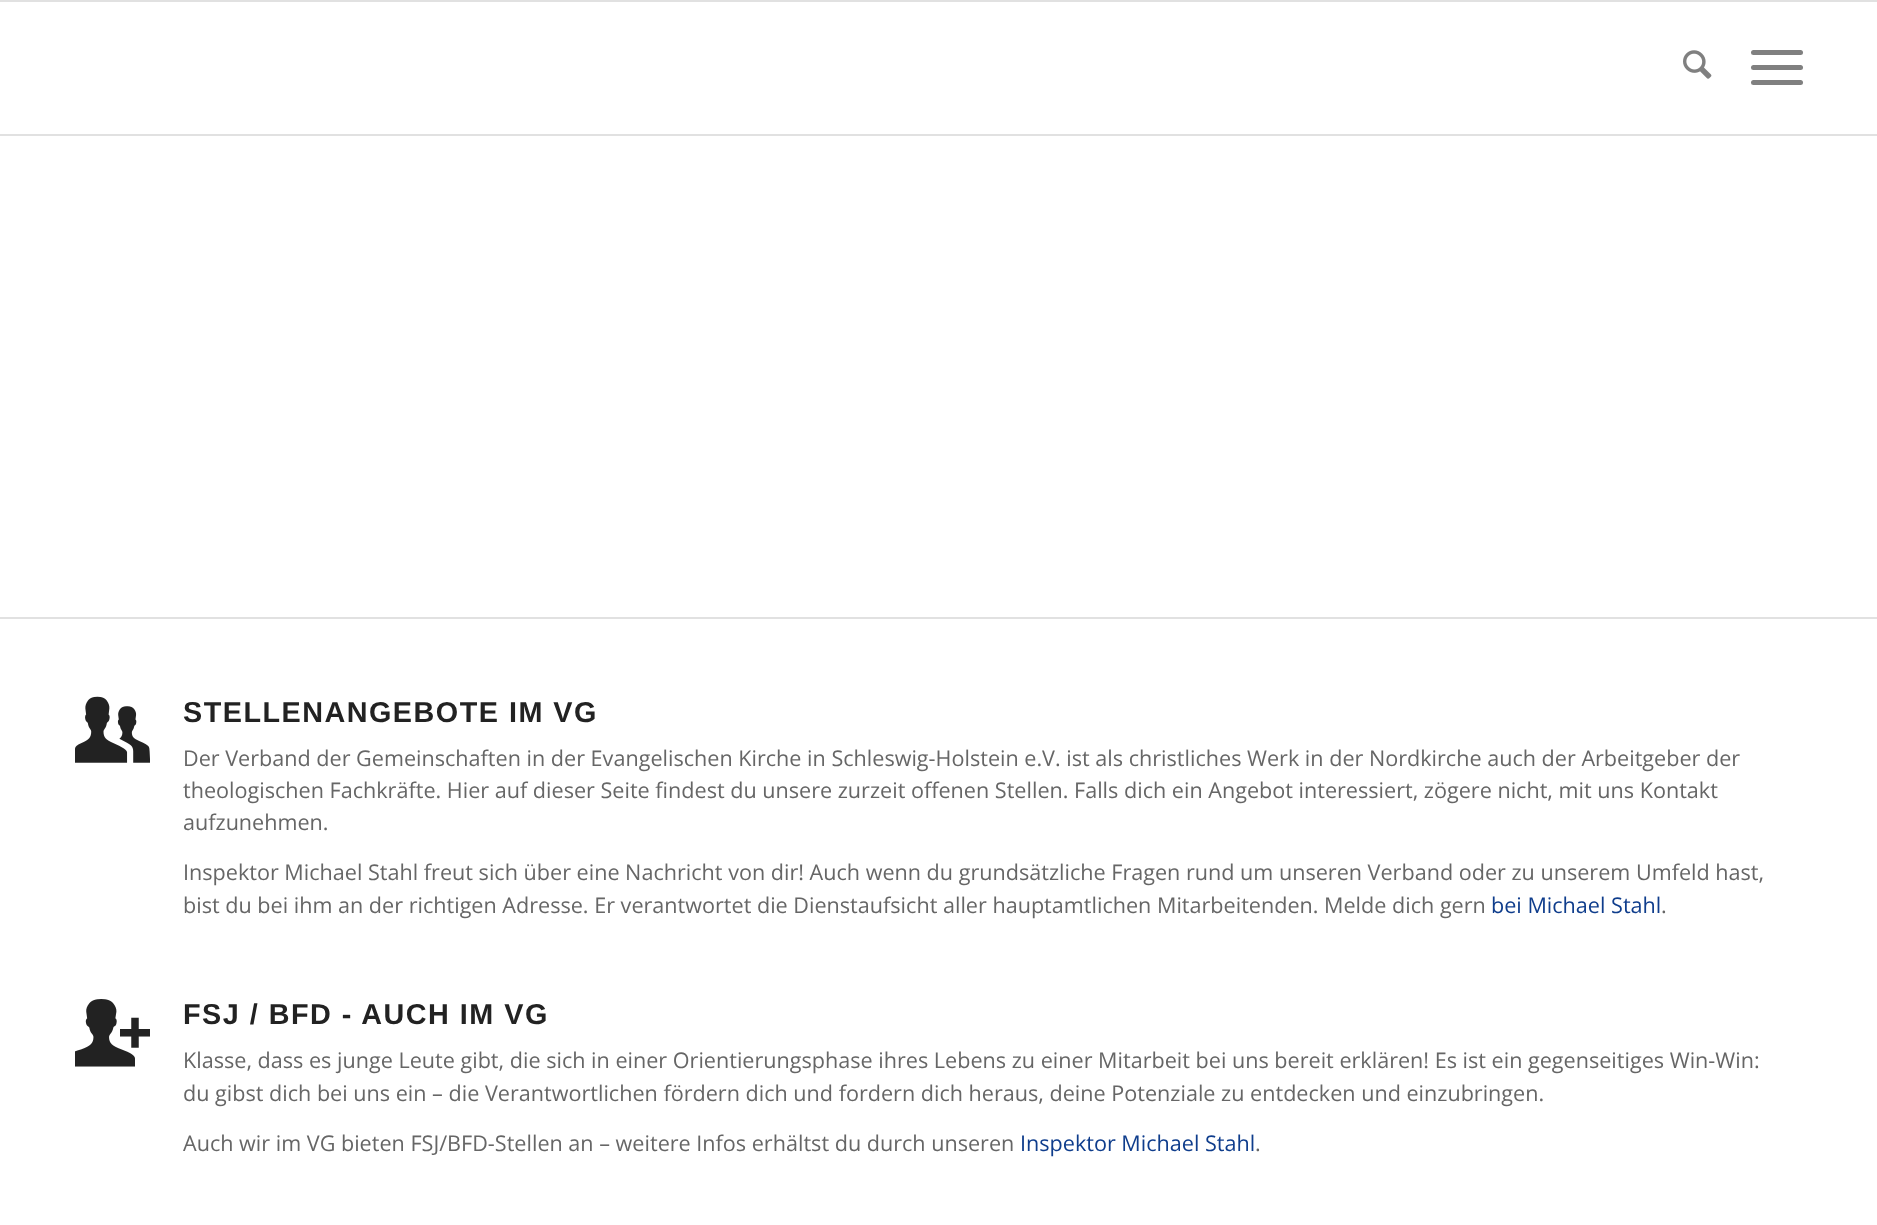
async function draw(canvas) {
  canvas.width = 1877;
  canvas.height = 1225;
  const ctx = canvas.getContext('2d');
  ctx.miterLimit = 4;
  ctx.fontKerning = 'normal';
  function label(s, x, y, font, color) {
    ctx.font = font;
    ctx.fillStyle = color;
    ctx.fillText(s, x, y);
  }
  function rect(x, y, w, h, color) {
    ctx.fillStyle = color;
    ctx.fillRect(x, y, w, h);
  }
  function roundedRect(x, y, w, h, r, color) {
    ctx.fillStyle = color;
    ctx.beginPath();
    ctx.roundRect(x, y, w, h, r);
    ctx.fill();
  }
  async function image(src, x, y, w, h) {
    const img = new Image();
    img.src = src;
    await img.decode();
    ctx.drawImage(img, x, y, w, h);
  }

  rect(0, 0, 1877, 1225, '#fff');
  rect(0, 0, 1877, 2, '#e1e1e1');
  rect(0, 134, 1877, 2, '#e1e1e1');
  await image('assets/img1.png', 1683, 50, 29, 29);
  roundedRect(1751, 65, 52, 5, 2.5, '#808080');
  roundedRect(1751, 50, 52, 5, 2.5, '#808080');
  roundedRect(1751, 80, 52, 5, 2.5, '#808080');
  rect(0, 617, 1877, 2, '#e1e1e1');
  await image('assets/img2.png', 75, 696, 75, 67);
  ctx.letterSpacing = '1.5px';
  label('STELLENANGEBOTE IM VG', 183, 722, 'bold 28.75px Liberation Sans', '#222');
  ctx.letterSpacing = '0px';
  label('Der Verband der Gemeinschaften in der Evangelischen Kirche in Schleswig-Holstein e.V. ist als christliches Werk in der Nordkirche auch der Arbeitgeber der', 183, 766, '21.6px Open Sans', '#666');
  label('theologischen Fachkräfte. Hier auf dieser Seite findest du unsere zurzeit offenen Stellen. Falls dich ein Angebot interessiert, zögere nicht, mit uns Kontakt', 183, 798, '21.6px Open Sans', '#666');
  label('aufzunehmen.', 183, 830, '21.6px Open Sans', '#666');
  label('Inspektor Michael Stahl freut sich über eine Nachricht von dir! Auch wenn du grundsätzliche Fragen rund um unseren Verband oder zu unserem Umfeld hast,', 183, 880, '21.6px Open Sans', '#666');
  label('bist du bei ihm an der richtigen Adresse. Er verantwortet die Dienstaufsicht aller hauptamtlichen Mitarbeitenden. Melde dich gern', 183, 913, '21.6px Open Sans', '#666');
  label('bei Michael Stahl', 1491, 913, '21.6px Open Sans', '#0f3d8c');
  label('.', 1661, 913, '21.6px Open Sans', '#666');
  await image('assets/img3.png', 75, 999, 75, 68);
  ctx.letterSpacing = '1.5px';
  label('FSJ / BFD - AUCH IM VG', 183, 1024, 'bold 28.75px Liberation Sans', '#222');
  ctx.letterSpacing = '0px';
  label('Klasse, dass es junge Leute gibt, die sich in einer Orientierungsphase ihres Lebens zu einer Mitarbeit bei uns bereit erklären! Es ist ein gegenseitiges Win-Win:', 183, 1068, '21.6px Open Sans', '#666');
  label('du gibst dich bei uns ein – die Verantwortlichen fördern dich und fordern dich heraus, deine Potenziale zu entdecken und einzubringen.', 183, 1101, '21.6px Open Sans', '#666');
  label('Auch wir im VG bieten FSJ/BFD-Stellen an – weitere Infos erhältst du durch unseren', 183, 1151, '21.6px Open Sans', '#666');
  label('Inspektor Michael Stahl', 1020, 1151, '21.6px Open Sans', '#0f3d8c');
  label('.', 1255, 1151, '21.6px Open Sans', '#666');
}

draw(document.querySelector('canvas'));
